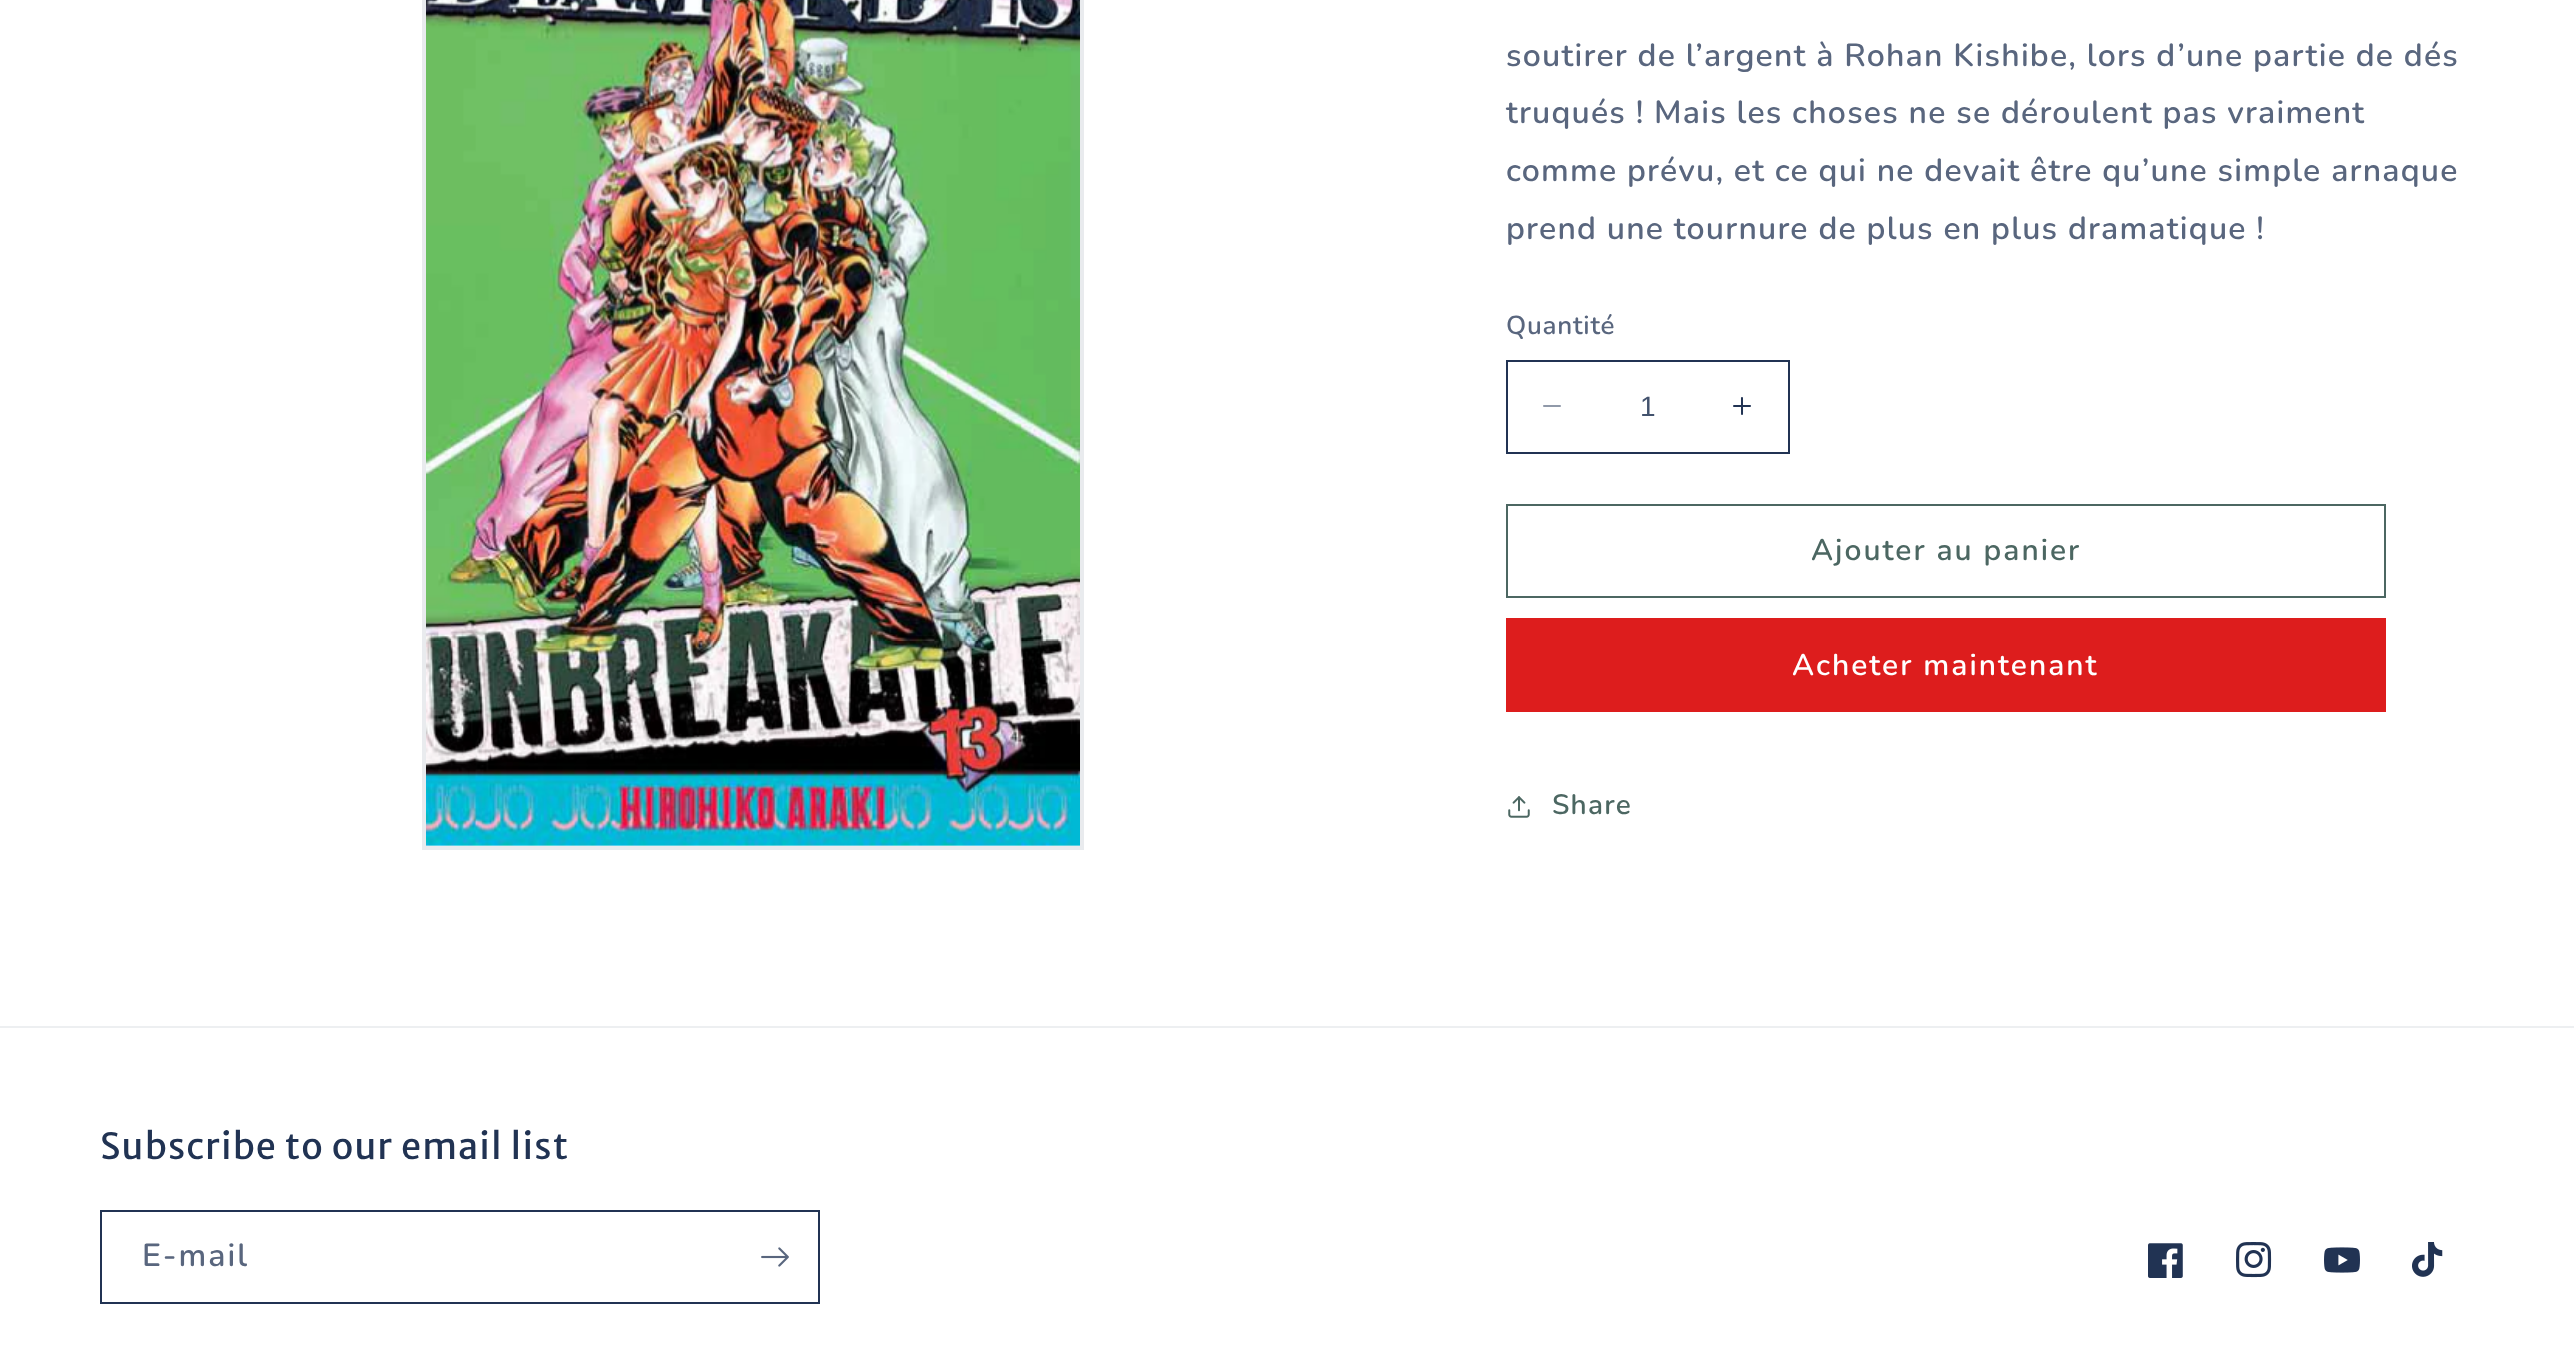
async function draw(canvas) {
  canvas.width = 2574;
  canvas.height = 1346;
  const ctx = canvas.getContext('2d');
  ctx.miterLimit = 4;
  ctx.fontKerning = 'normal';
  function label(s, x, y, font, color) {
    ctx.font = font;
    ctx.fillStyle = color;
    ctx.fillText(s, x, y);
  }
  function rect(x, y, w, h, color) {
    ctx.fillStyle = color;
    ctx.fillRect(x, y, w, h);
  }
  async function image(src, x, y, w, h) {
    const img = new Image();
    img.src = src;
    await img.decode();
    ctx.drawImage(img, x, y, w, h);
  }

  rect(0, 0, 2574, 1346, '#fff');
  ctx.strokeStyle = '#e9ebee';
  ctx.lineWidth = 4;
  ctx.strokeRect(424, -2, 658, 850);
  await image('assets/img1.png', 426, 0, 654, 846);
  ctx.letterSpacing = '1.2px';
  label('soutirer de l’argent à Rohan Kishibe, lors d’une partie de dés', 1506, 66, '600 32px Nunito', '#59667e');
  label('truqués ! Mais les choses ne se déroulent pas vraiment', 1506, 123, '600 32px Nunito', '#59667e');
  label('comme prévu, et ce qui ne devait être qu’une simple arnaque', 1506, 181, '600 32px Nunito', '#59667e');
  label('prend une tournure de plus en plus dramatique !', 1506, 239, '600 32px Nunito', '#59667e');
  ctx.letterSpacing = '0.75px';
  label('Quantité', 1506, 334, '600 26px Nunito', '#59667e');
  await image('assets/img2.png', 1543, 405, 18, 2);
  await image('assets/img3.png', 1733, 397, 18, 18);
  ctx.strokeStyle = '#213353';
  ctx.lineWidth = 2;
  ctx.strokeRect(1507, 361, 282, 92);
  ctx.letterSpacing = '0px';
  label('1', 1640, 416, '28px Liberation Sans', '#42526d');
  ctx.strokeStyle = '#4c6762';
  ctx.strokeRect(1507, 505, 878, 92);
  ctx.letterSpacing = '2px';
  label('Ajouter au panier', 1811, 560, '600 30px Nunito', '#4c6762');
  rect(1506, 618, 880, 94, '#dd1d1d');
  label('Acheter maintenant', 1792, 675, '600 30px Nunito', '#fff');
  await image('assets/img4.png', 1508, 796, 22, 22);
  ctx.letterSpacing = '1.2px';
  label('Share', 1552, 814, '600 28px Nunito', '#4c6762');
  rect(0, 1026, 2574, 2, '#edeff1');
  label('Subscribe to our email list', 100, 1159, '36px Merriweather Sans', '#213353');
  ctx.strokeStyle = '#213353';
  ctx.strokeRect(101, 1211, 718, 92);
  ctx.letterSpacing = '2px';
  label('E-mail', 142, 1266, '600 32px Nunito', '#59667e');
  await image('assets/img5.png', 761, 1247, 28, 20);
  await image('assets/img6.png', 2148, 1243, 35, 35);
  await image('assets/img7.png', 2236, 1242, 36, 36);
  await image('assets/img8.png', 2324, 1247, 36, 26);
  await image('assets/img9.png', 2412, 1242, 31, 35);
}

draw(document.querySelector('canvas'));
